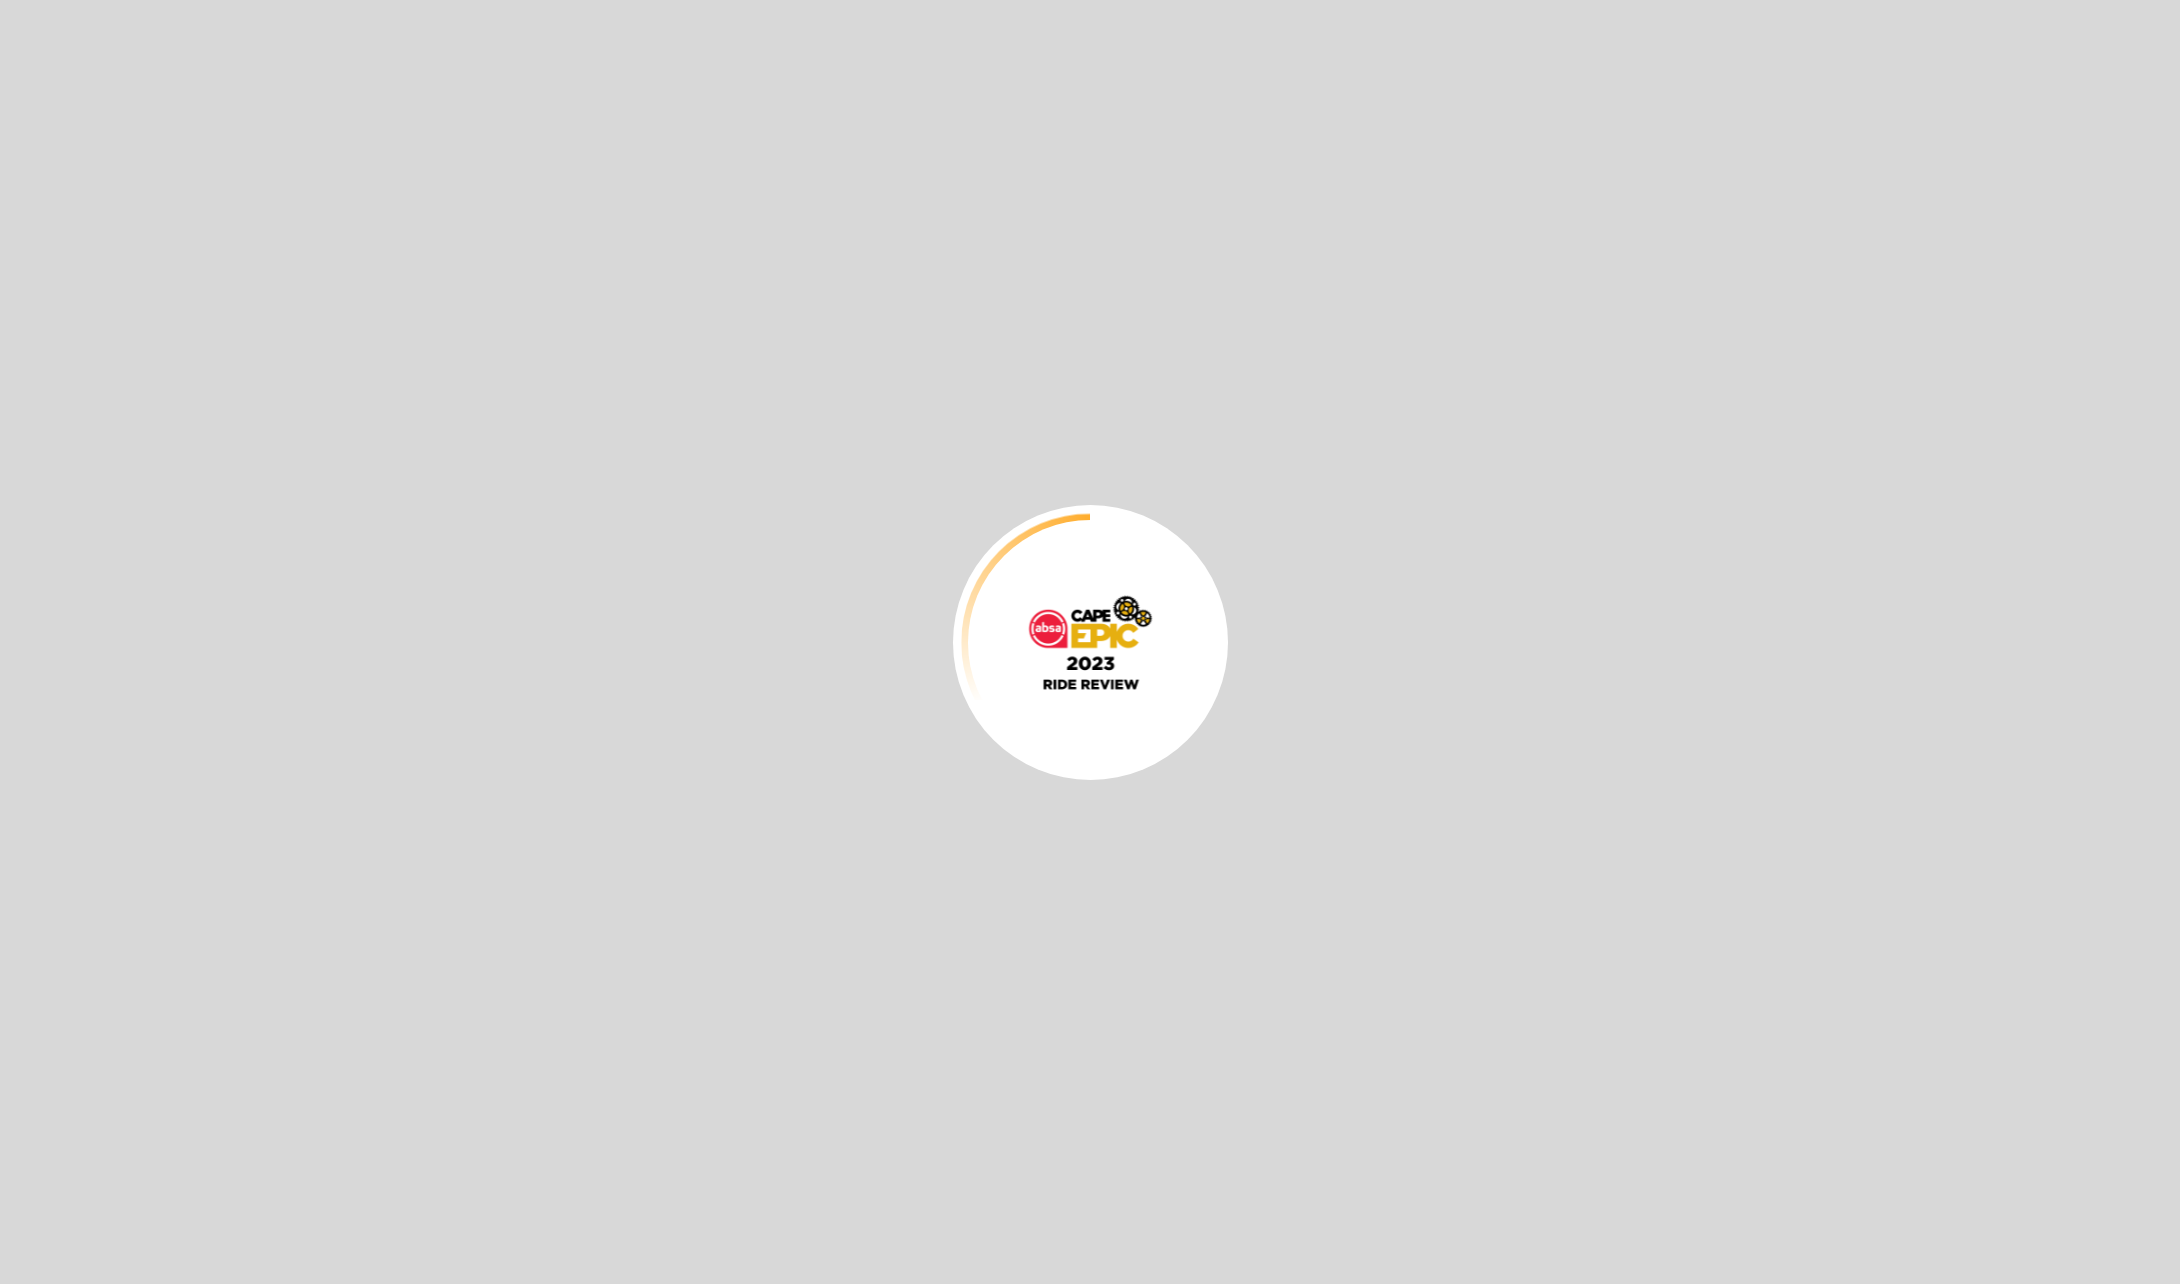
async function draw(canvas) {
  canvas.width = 2180;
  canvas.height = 1284;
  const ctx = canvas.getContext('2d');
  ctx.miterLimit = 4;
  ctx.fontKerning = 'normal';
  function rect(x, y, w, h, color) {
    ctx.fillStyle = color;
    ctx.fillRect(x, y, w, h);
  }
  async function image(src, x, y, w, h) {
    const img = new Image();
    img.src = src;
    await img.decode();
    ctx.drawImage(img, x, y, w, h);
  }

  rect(0, 0, 2180, 1284, '#d8d8d8');
  ctx.fillStyle = '#fff';
  ctx.beginPath();
  ctx.arc(1090.5, 642.5, 137.5, 0, 2 * Math.PI);
  ctx.fill();
  await image('assets/img1.png', 961, 513, 129, 187);
  ctx.beginPath();
  ctx.arc(1090.5, 642.5, 122.5, 0, 2 * Math.PI);
  ctx.fill();
  await image('assets/img2.png', 1028, 595, 125, 95);
}

draw(document.querySelector('canvas'));
